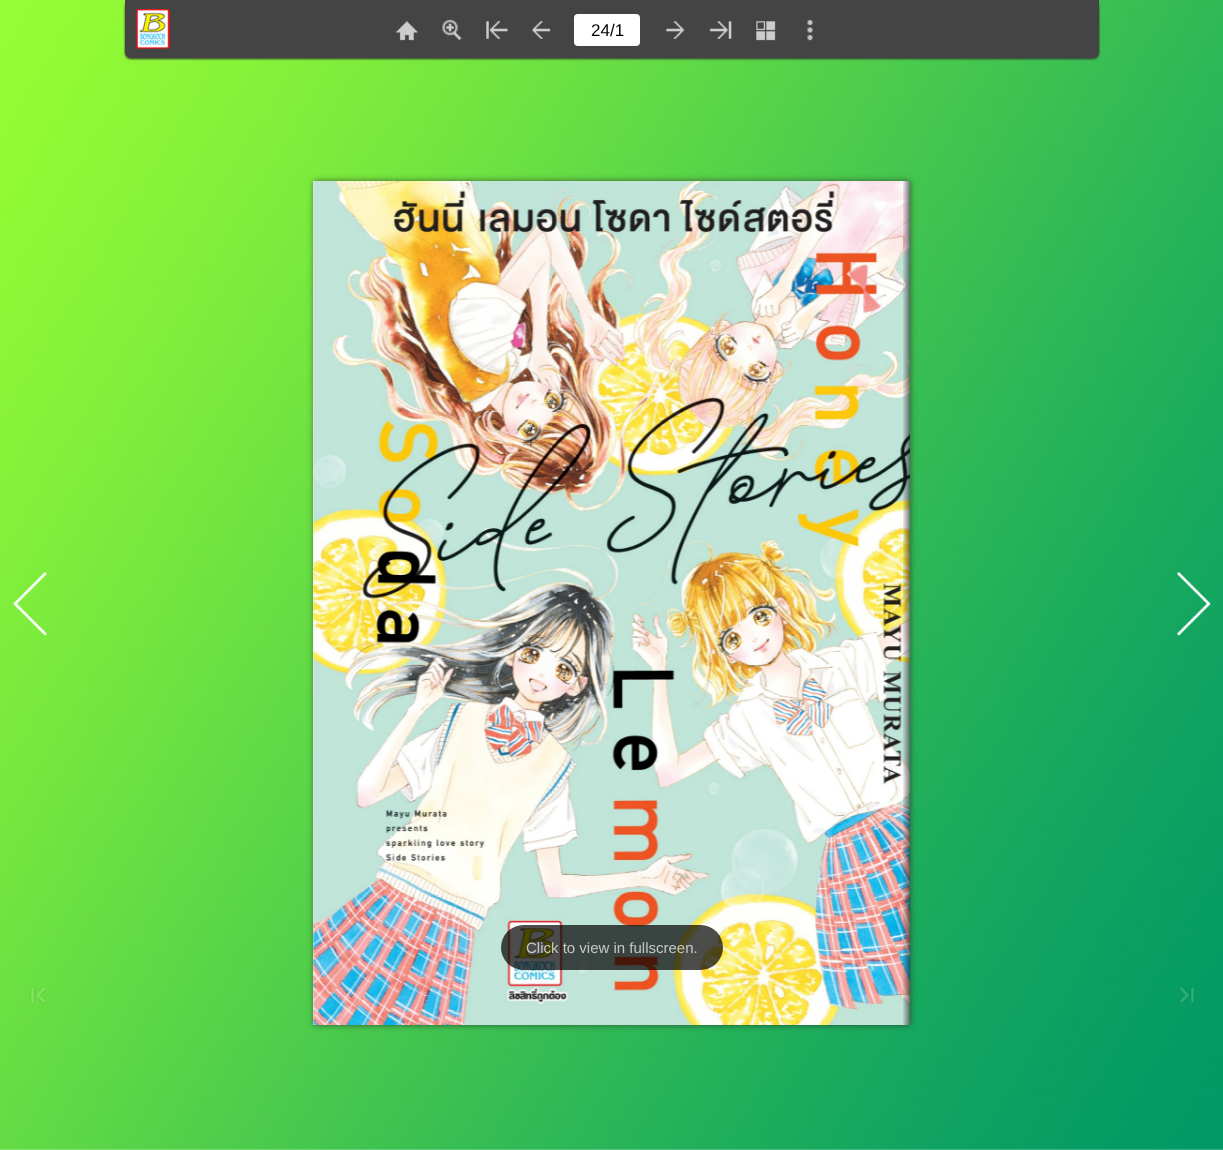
async function draw(canvas) {
  canvas.width = 1223;
  canvas.height = 1150;
  const ctx = canvas.getContext('2d');
  ctx.miterLimit = 4;
  ctx.fontKerning = 'normal';
  function label(s, x, y, font, color) {
    ctx.font = font;
    ctx.fillStyle = color;
    ctx.fillText(s, x, y);
  }
  function rect(x, y, w, h, color) {
    ctx.fillStyle = color;
    ctx.fillRect(x, y, w, h);
  }
  function roundedRect(x, y, w, h, r, color) {
    ctx.fillStyle = color;
    ctx.beginPath();
    ctx.roundRect(x, y, w, h, r);
    ctx.fill();
  }
  async function image(src, x, y, w, h) {
    const img = new Image();
    img.src = src;
    await img.decode();
    ctx.drawImage(img, x, y, w, h);
  }
  let gradient;

  rect(0, 0, 1223, 1150, '#fff');
  await image('assets/img1.png', 0, 0, 1223, 1150);
  ctx.fillStyle = '#303030';
  ctx.filter = 'blur(1px)';
  ctx.beginPath();
  ctx.roundRect(125, 1, 974, 58, 6);
  ctx.fill();
  ctx.filter = 'none';
  ctx.fillStyle = '#444';
  ctx.beginPath();
  ctx.roundRect(125, 0, 974, 58, [0, 0, 6, 6]);
  ctx.fill();
  await image('assets/img2.png', 136, 9, 34, 40);
  await image('assets/img3.png', 396, 21, 22, 20);
  await image('assets/img4.png', 442, 19, 20, 22);
  await image('assets/img5.png', 486, 21, 22, 18);
  await image('assets/img6.png', 532, 21, 19, 18);
  roundedRect(574, 14, 66, 32, 4, '#fff');
  label('24/1', 591, 36, '17px Liberation Sans', '#000');
  await image('assets/img7.png', 666, 21, 18, 18);
  await image('assets/img8.png', 709, 21, 23, 18);
  await image('assets/img9.png', 756, 21, 20, 20);
  await image('assets/img10.png', 807, 19, 6, 22);
  await image('assets/img11.png', 13, 572, 34, 64);
  await image('assets/img12.png', 1177, 572, 34, 64);
  ctx.fillStyle = '#282828b3';
  ctx.filter = 'blur(3px)';
  ctx.beginPath();
  ctx.rect(314, 181, 596, 844);
  ctx.fill();
  ctx.filter = 'none';
  await image('assets/img13.png', 313, 181, 2, 844);
  await image('assets/img14.png', 909, 181, 1, 844);
  await image('assets/img15.png', 313, 181, 2, 844);
  await image('assets/img16.png', 314, 181, 1, 844);
  await image('assets/img17.png', 313, 181, 597, 844);
  gradient = ctx.createLinearGradient(909, 603, 902, 603);
  gradient.addColorStop(0, '#14141480');
  gradient.addColorStop(1, '#14141400');
  ctx.fillStyle = gradient;
  ctx.fillRect(903, 181, 7, 844);
  roundedRect(501, 925, 222, 45, 22.5, '#000000b3');
  label('Click to view in fullscreen.', 526, 953, '15px Liberation Sans', '#c5c7c5');
  await image('assets/img18.png', 30, 986, 16, 18);
  await image('assets/img19.png', 1179, 986, 16, 18);
}

draw(document.querySelector('canvas'));
